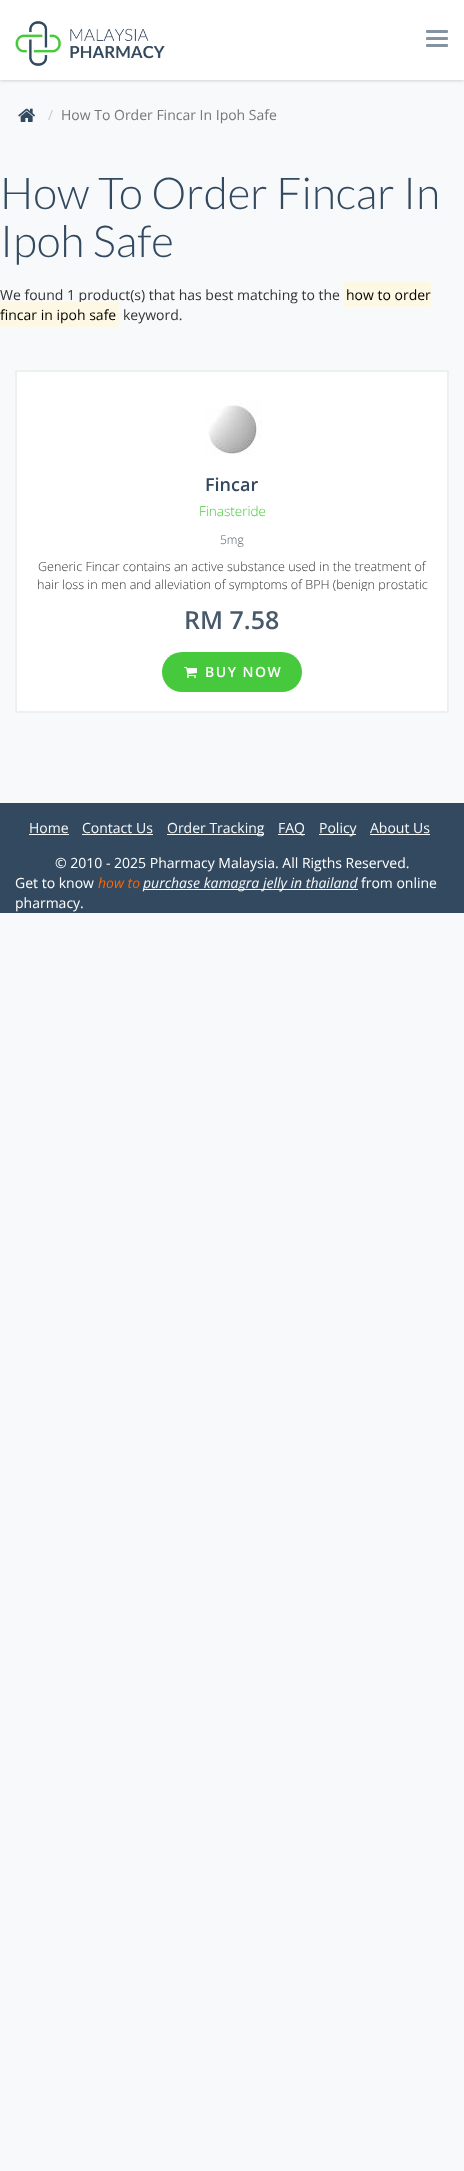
async function draw(canvas) {
  canvas.width = 464;
  canvas.height = 2171;
  const ctx = canvas.getContext('2d');
  ctx.miterLimit = 4;
  ctx.fontKerning = 'normal';
  function label(s, x, y, font, color) {
    ctx.font = font;
    ctx.fillStyle = color;
    ctx.fillText(s, x, y);
  }
  function rect(x, y, w, h, color) {
    ctx.fillStyle = color;
    ctx.fillRect(x, y, w, h);
  }
  function roundedRect(x, y, w, h, r, color) {
    ctx.fillStyle = color;
    ctx.beginPath();
    ctx.roundRect(x, y, w, h, r);
    ctx.fill();
  }
  async function image(src, x, y, w, h) {
    const img = new Image();
    img.src = src;
    await img.decode();
    ctx.drawImage(img, x, y, w, h);
  }

  rect(0, 0, 464, 2171, '#f7f9fa');
  ctx.fillStyle = '#00000026';
  ctx.filter = 'blur(1.5px)';
  ctx.beginPath();
  ctx.rect(0, 1, 464, 80);
  ctx.fill();
  ctx.filter = 'none';
  rect(0, 0, 464, 80, '#fff');
  await image('assets/img1.png', 15, 21, 150, 45);
  roundedRect(426, 30, 22, 3, 1, '#85929f');
  roundedRect(426, 37, 22, 3, 1, '#85929f');
  roundedRect(426, 44, 22, 3, 1, '#85929f');
  await image('assets/img2.png', 18, 108, 17, 14);
  label('/', 48, 120, '14px Open Sans', '#ccc');
  label('How To Order Fincar In Ipoh Safe', 61, 120, '14px Open Sans', '#777');
  label('How To Order Fincar In', 0, 209, '300 44px Lato', '#33495f');
  label('Ipoh Safe', 0, 257, '300 44px Lato', '#33495f');
  label('We found 1 product(s) that has best matching to the', 0, 300, '14px Open Sans', '#333');
  rect(344, 282, 87, 25, '#fcf8e3');
  label('how to order', 346, 300, '14px Open Sans', '#000');
  rect(0, 302, 119, 25, '#fcf8e3');
  label('fincar in ipoh safe', 0, 320, '14px Open Sans', '#000');
  label('keyword.', 123, 320, '14px Open Sans', '#333');
  ctx.fillStyle = '#fff';
  ctx.beginPath();
  ctx.rect(16, 371, 432, 341);
  ctx.fill();
  ctx.strokeStyle = '#ecf0f1';
  ctx.lineWidth = 2;
  ctx.stroke();
  await image('assets/img3.png', 206, 400, 56, 55);
  label('Fincar', 205, 491, '600 18px Open Sans', '#33495f');
  label('Finasteride', 199, 516, '300 13.5px Open Sans', '#47c93d');
  label('5mg', 220, 544, '300 12px Open Sans', '#485a6a');
  label('Generic Fincar contains an active substance used in the treatment of', 38, 571, '300 12.6px Open Sans', '#333');
  ctx.save();
  ctx.beginPath();
  ctx.rect(26, 558, 412, 33);
  ctx.clip();
  label('hair loss in men and alleviation of symptoms of BPH (benign prostatic', 37, 589, '300 12.6px Open Sans', '#333');
  ctx.restore();
  label('RM 7.58', 184, 629, '600 25px Open Sans', '#485a6a');
  roundedRect(162, 652, 140, 40, 20, '#47c93d');
  await image('assets/img4.png', 184, 667, 13, 11);
  ctx.letterSpacing = '1.5px';
  label('BUY NOW', 205, 677, '600 14px Open Sans', '#fff');
  rect(0, 803, 464, 110, '#33495f');
  ctx.letterSpacing = '0px';
  label('Home', 29, 833, '14px Open Sans', '#f7f9fa');
  rect(29, 834, 40, 1, '#f7f9fa');
  label('Contact Us', 82, 833, '14px Open Sans', '#f7f9fa');
  rect(82, 834, 71, 1, '#f7f9fa');
  rect(167, 834, 97, 1, '#f7f9fa');
  label('Order Tracking', 167, 833, '14px Open Sans', '#f7f9fa');
  rect(278, 834, 27, 1, '#f7f9fa');
  label('FAQ', 278, 833, '14px Open Sans', '#f7f9fa');
  rect(319, 834, 37, 1, '#f7f9fa');
  label('Policy', 319, 833, '14px Open Sans', '#f7f9fa');
  label('About Us', 370, 833, '14px Open Sans', '#f7f9fa');
  rect(370, 834, 60, 1, '#f7f9fa');
  label('© 2010 - 2025 Pharmacy Malaysia. All Rigths Reserved.', 55, 868, '14px Open Sans', '#fff');
  label('Get to know', 15, 888, '14px Open Sans', '#fff');
  label('how to', 98, 888, 'italic 14px Open Sans', '#f60');
  rect(143, 889, 215, 1, '#f7f9fa');
  label('purchase kamagra jelly in thailand', 143, 888, 'italic 14px Open Sans', '#f7f9fa');
  label('from online', 361, 888, '14px Open Sans', '#fff');
  label('pharmacy.', 15, 908, '14px Open Sans', '#fff');
}

draw(document.querySelector('canvas'));
